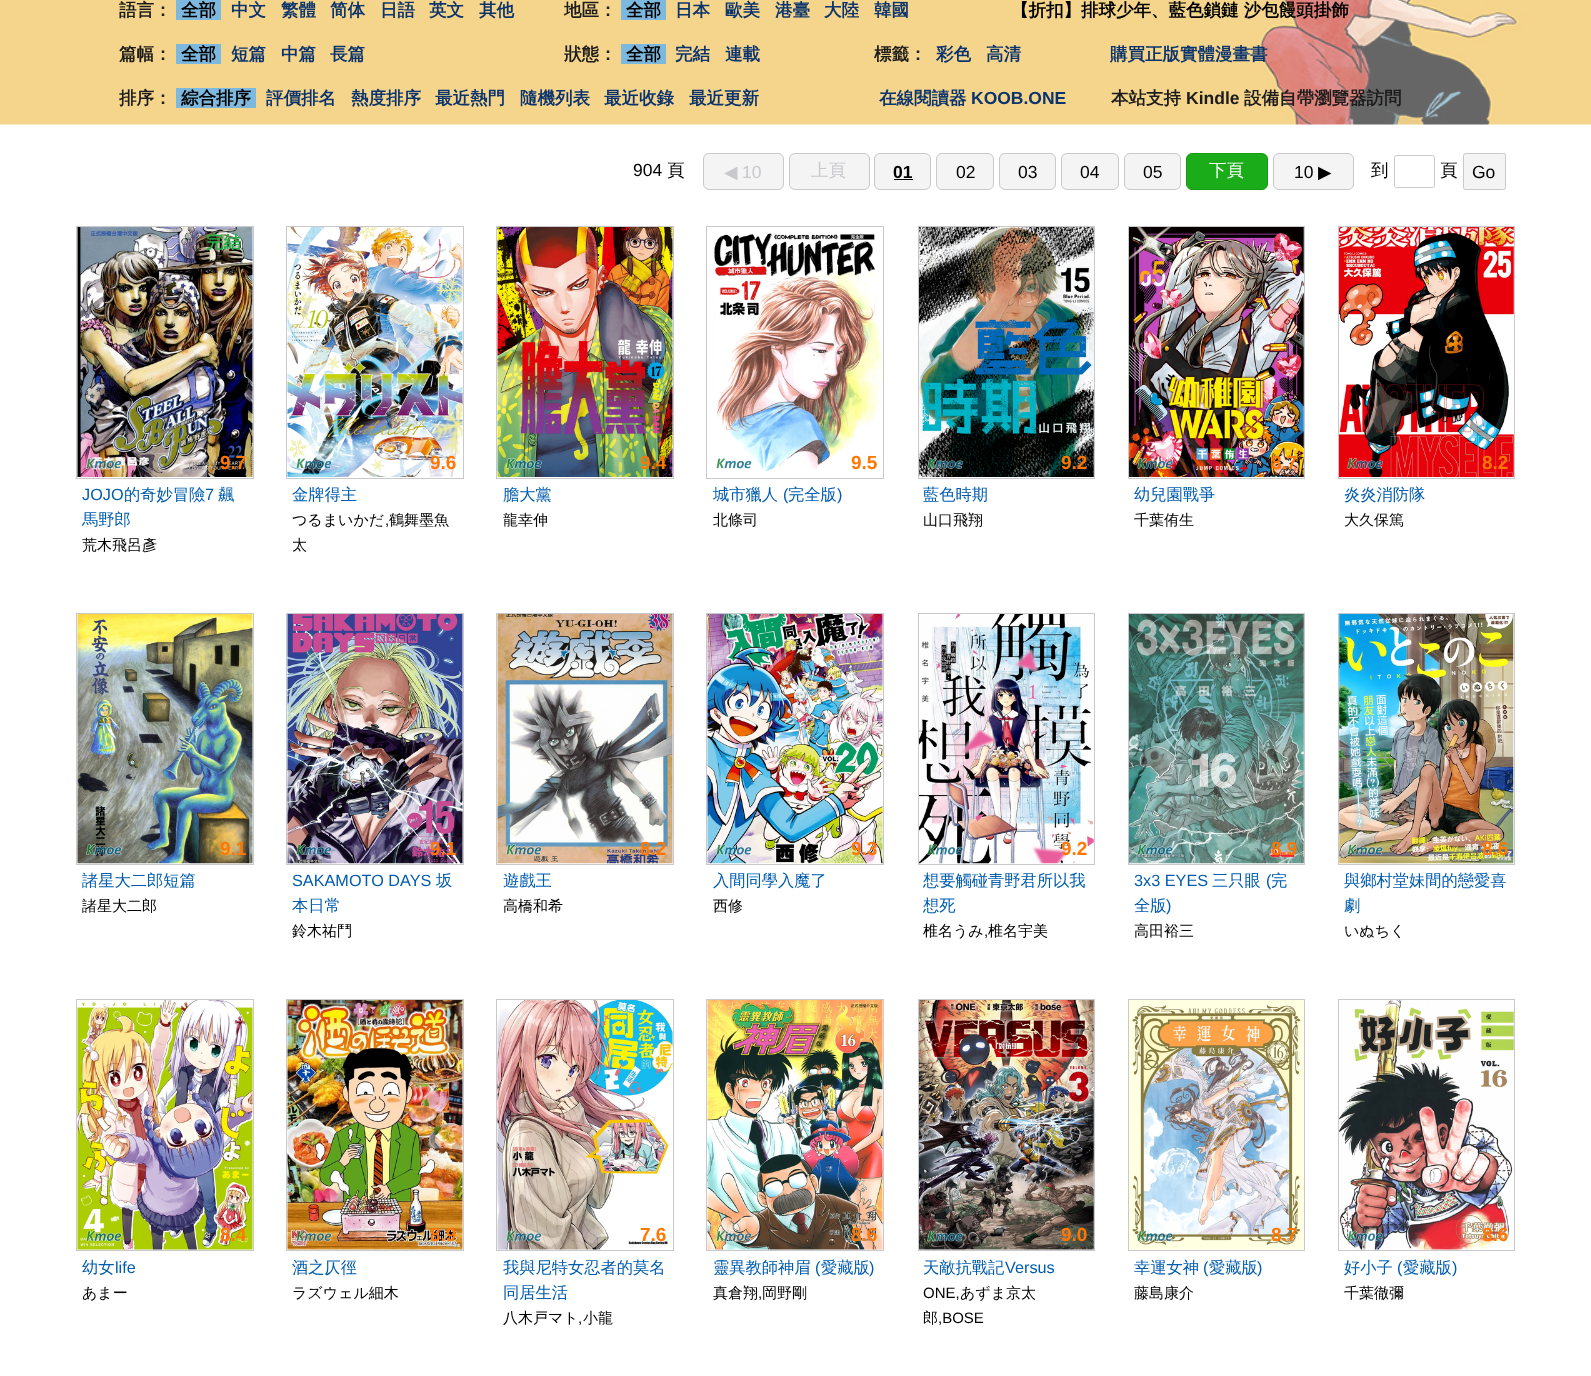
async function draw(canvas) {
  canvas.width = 1591;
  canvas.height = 1376;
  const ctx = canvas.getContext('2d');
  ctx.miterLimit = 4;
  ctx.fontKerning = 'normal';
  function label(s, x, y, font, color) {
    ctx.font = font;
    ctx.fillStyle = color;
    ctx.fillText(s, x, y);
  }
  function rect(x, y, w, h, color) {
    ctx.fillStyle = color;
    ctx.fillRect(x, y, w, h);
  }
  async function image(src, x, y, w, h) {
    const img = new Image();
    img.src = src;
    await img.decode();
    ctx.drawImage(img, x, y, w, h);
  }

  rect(0, 0, 1591, 1376, '#fff');
  await image('assets/img1.png', 0, 0, 1591, 125);
  label('語言：', 119, 16, 'bold 17.5px WenQuanYi Zen Hei', '#1c1c1c');
  rect(176, 0, 45, 20, '#7db9de');
  label('全部', 181, 16, 'bold 17.5px WenQuanYi Zen Hei', '#000');
  label('中文', 231, 16, 'bold 17.5px WenQuanYi Zen Hei', '#0b346e');
  label('繁體', 281, 16, 'bold 17.5px WenQuanYi Zen Hei', '#0b346e');
  label('简体', 330, 16, 'bold 17.5px WenQuanYi Zen Hei', '#0b346e');
  label('日語', 380, 16, 'bold 17.5px WenQuanYi Zen Hei', '#0b346e');
  label('英文', 429, 16, 'bold 17.5px WenQuanYi Zen Hei', '#0b346e');
  label('其他', 479, 16, 'bold 17.5px WenQuanYi Zen Hei', '#0b346e');
  label('地區：', 564, 16, 'bold 17.5px WenQuanYi Zen Hei', '#1c1c1c');
  rect(621, 0, 45, 20, '#7db9de');
  label('全部', 626, 16, 'bold 17.5px WenQuanYi Zen Hei', '#000');
  label('日本', 675, 16, 'bold 17.5px WenQuanYi Zen Hei', '#0b346e');
  label('歐美', 725, 16, 'bold 17.5px WenQuanYi Zen Hei', '#0b346e');
  label('港臺', 775, 16, 'bold 17.5px WenQuanYi Zen Hei', '#0b346e');
  label('大陸', 824, 16, 'bold 17.5px WenQuanYi Zen Hei', '#0b346e');
  label('韓國', 874, 16, 'bold 17.5px WenQuanYi Zen Hei', '#0b346e');
  label('【折扣】排球少年、藍色鎖鏈 沙包饅頭掛飾', 1011, 16, 'bold 17.5px WenQuanYi Zen Hei', '#000');
  label('篇幅：', 119, 60, 'bold 17.5px WenQuanYi Zen Hei', '#1c1c1c');
  rect(176, 44, 45, 20, '#7db9de');
  label('全部', 181, 60, 'bold 17.5px WenQuanYi Zen Hei', '#000');
  label('短篇', 231, 60, 'bold 17.5px WenQuanYi Zen Hei', '#0b346e');
  label('中篇', 281, 60, 'bold 17.5px WenQuanYi Zen Hei', '#0b346e');
  label('長篇', 330, 60, 'bold 17.5px WenQuanYi Zen Hei', '#0b346e');
  label('狀態：', 564, 60, 'bold 17.5px WenQuanYi Zen Hei', '#1c1c1c');
  rect(621, 44, 45, 20, '#7db9de');
  label('全部', 626, 60, 'bold 17.5px WenQuanYi Zen Hei', '#000');
  label('完結', 675, 60, 'bold 17.5px WenQuanYi Zen Hei', '#0b346e');
  label('連載', 725, 60, 'bold 17.5px WenQuanYi Zen Hei', '#0b346e');
  label('標籤：', 874, 60, 'bold 17.5px WenQuanYi Zen Hei', '#1c1c1c');
  label('彩色', 936, 60, 'bold 17.5px WenQuanYi Zen Hei', '#0b346e');
  label('高清', 986, 60, 'bold 17.5px WenQuanYi Zen Hei', '#0b346e');
  label('購買正版實體漫畫書', 1110, 60, 'bold 17.5px WenQuanYi Zen Hei', '#0b346e');
  label('排序：', 119, 104, 'bold 17.5px WenQuanYi Zen Hei', '#1c1c1c');
  rect(176, 88, 80, 20, '#7db9de');
  label('綜合排序', 181, 104, 'bold 17.5px WenQuanYi Zen Hei', '#000');
  label('評價排名', 266, 104, 'bold 17.5px WenQuanYi Zen Hei', '#0b346e');
  label('熱度排序', 351, 104, 'bold 17.5px WenQuanYi Zen Hei', '#0b346e');
  label('最近熱門', 435, 104, 'bold 17.5px WenQuanYi Zen Hei', '#0b346e');
  label('隨機列表', 520, 104, 'bold 17.5px WenQuanYi Zen Hei', '#0b346e');
  label('最近收錄', 604, 104, 'bold 17.5px WenQuanYi Zen Hei', '#0b346e');
  label('最近更新', 689, 104, 'bold 17.5px WenQuanYi Zen Hei', '#0b346e');
  label('在線閱讀器', 879, 104, 'bold 17.5px WenQuanYi Zen Hei', '#0b346e');
  label('KOOB.ONE', 971, 104, 'bold 17.5px Liberation Sans', '#0b346e');
  label('本站支持', 1111, 104, 'bold 17.5px WenQuanYi Zen Hei', '#1c1c1c');
  label('Kindle', 1186, 104, 'bold 17.5px Liberation Sans', '#1c1c1c');
  label('設備自帶瀏覽器訪問', 1244, 104, 'bold 17.5px WenQuanYi Zen Hei', '#1c1c1c');
  label('904', 633, 176, '17.5px Liberation Sans', '#000');
  label('頁', 667, 176, '500 17.5px WenQuanYi Zen Hei', '#000');
  ctx.fillStyle = '#f4f4f4';
  ctx.beginPath();
  ctx.roundRect(703.5, 153.5, 80, 36, 5.5);
  ctx.fill();
  ctx.strokeStyle = '#c8c8cd';
  ctx.stroke();
  label('◀︎', 724, 178, '17.5px DejaVu Sans', '#c8c8cd');
  label('10', 742, 178, '17.5px Liberation Sans', '#c8c8cd');
  ctx.fillStyle = '#f4f4f4';
  ctx.beginPath();
  ctx.roundRect(789.5, 153.5, 80, 36, 5.5);
  ctx.fill();
  ctx.stroke();
  label('上頁', 811, 176, '500 17.5px WenQuanYi Zen Hei', '#c8c8cd');
  ctx.fillStyle = '#f4f4f4';
  ctx.beginPath();
  ctx.roundRect(874.5, 153.5, 56, 36, 5.5);
  ctx.fill();
  ctx.stroke();
  label('01', 893, 178, 'bold 17.5px Liberation Sans', '#000');
  rect(894, 179, 19, 1, '#000');
  ctx.fillStyle = '#f4f4f4';
  ctx.beginPath();
  ctx.roundRect(936.5, 153.5, 57, 36, 5.5);
  ctx.fill();
  ctx.stroke();
  label('02', 956, 178, '17.5px Liberation Sans', '#000');
  ctx.fillStyle = '#f4f4f4';
  ctx.beginPath();
  ctx.roundRect(999.5, 153.5, 56, 36, 5.5);
  ctx.fill();
  ctx.stroke();
  label('03', 1018, 178, '17.5px Liberation Sans', '#000');
  ctx.fillStyle = '#f4f4f4';
  ctx.beginPath();
  ctx.roundRect(1061.5, 153.5, 57, 36, 5.5);
  ctx.fill();
  ctx.stroke();
  label('04', 1080, 178, '17.5px Liberation Sans', '#000');
  ctx.fillStyle = '#f4f4f4';
  ctx.beginPath();
  ctx.roundRect(1124.5, 153.5, 56, 36, 5.5);
  ctx.fill();
  ctx.stroke();
  label('05', 1143, 178, '17.5px Liberation Sans', '#000');
  ctx.fillStyle = '#1aad19';
  ctx.beginPath();
  ctx.roundRect(1186.5, 153.5, 81, 36, 5.5);
  ctx.fill();
  ctx.strokeStyle = '#179b16';
  ctx.stroke();
  label('下頁', 1209, 176, '500 17.5px WenQuanYi Zen Hei', '#fff');
  ctx.fillStyle = '#f4f4f4';
  ctx.beginPath();
  ctx.roundRect(1273.5, 153.5, 80, 36, 5.5);
  ctx.fill();
  ctx.strokeStyle = '#c8c8cd';
  ctx.stroke();
  label('10', 1294, 178, '17.5px Liberation Sans', '#000');
  label('▶︎', 1318, 178, '17.5px DejaVu Sans', '#000');
  label('到', 1371, 176, '500 17.5px WenQuanYi Zen Hei', '#000');
  ctx.beginPath();
  ctx.roundRect(1394.5, 155.5, 40, 32, 2);
  ctx.stroke();
  label('頁', 1440, 176, '500 17.5px WenQuanYi Zen Hei', '#000');
  ctx.fillStyle = '#f4f4f4';
  ctx.beginPath();
  ctx.roundRect(1463.5, 153.5, 42, 36, 2);
  ctx.fill();
  ctx.stroke();
  label('Go', 1472, 178, '17.5px Liberation Sans', '#000');
  await image('assets/img2.png', 77, 227, 176, 250);
  ctx.strokeRect(76.5, 226.5, 177, 252);
  label('完結', 206, 248, 'bold 17.5px WenQuanYi Zen Hei', '#22b14c');
  label('9.7', 220, 469, 'bold 19px Liberation Sans', '#f70');
  label('JOJO', 82, 500, '16.25px Liberation Sans', '#005caf');
  label('的奇妙冒險', 124, 500, '500 16.25px WenQuanYi Zen Hei', '#005caf');
  label('7', 205, 500, '16.25px Liberation Sans', '#005caf');
  label('飆', 218, 500, '500 16.25px WenQuanYi Zen Hei', '#005caf');
  label('馬野郎', 82, 525, '500 16.25px WenQuanYi Zen Hei', '#005caf');
  label('荒木飛呂彥', 82, 550, '500 15px WenQuanYi Zen Hei', '#000');
  await image('assets/img3.png', 287, 227, 176, 250);
  ctx.strokeRect(286.5, 226.5, 177, 252);
  label('9.6', 430, 469, 'bold 19px Liberation Sans', '#f70');
  label('金牌得主', 292, 500, '500 16.25px WenQuanYi Zen Hei', '#005caf');
  label('つるまいかだ', 292, 525, '500 15px WenQuanYi Zen Hei', '#000');
  label(',', 385, 525, '15px Liberation Sans', '#000');
  label('鶴舞墨魚', 389, 525, '500 15px WenQuanYi Zen Hei', '#000');
  label('太', 292, 550, '500 15px WenQuanYi Zen Hei', '#000');
  await image('assets/img4.png', 497, 227, 176, 250);
  ctx.strokeRect(496.5, 226.5, 177, 252);
  label('9.4', 640, 469, 'bold 19px Liberation Sans', '#f70');
  label('膽大黨', 503, 500, '500 16.25px WenQuanYi Zen Hei', '#005caf');
  label('龍幸伸', 503, 525, '500 15px WenQuanYi Zen Hei', '#000');
  await image('assets/img5.png', 713, 233, 170, 239);
  ctx.strokeRect(706.5, 226.5, 177, 252);
  label('9.5', 851, 469, 'bold 19px Liberation Sans', '#f70');
  label('城市獵人', 713, 500, '500 16.25px WenQuanYi Zen Hei', '#005caf');
  label('(', 783, 500, '16.25px Liberation Sans', '#005caf');
  label('完全版', 788, 500, '500 16.25px WenQuanYi Zen Hei', '#005caf');
  label(')', 837, 500, '16.25px Liberation Sans', '#005caf');
  label('北條司', 713, 525, '500 15px WenQuanYi Zen Hei', '#000');
  await image('assets/img6.png', 919, 227, 175, 250);
  ctx.strokeRect(918.5, 226.5, 176, 252);
  label('9.2', 1061, 469, 'bold 19px Liberation Sans', '#f70');
  label('藍色時期', 923, 500, '500 16.25px WenQuanYi Zen Hei', '#005caf');
  label('山口飛翔', 923, 525, '500 15px WenQuanYi Zen Hei', '#000');
  await image('assets/img7.png', 1129, 227, 175, 250);
  ctx.strokeRect(1128.5, 226.5, 176, 252);
  label('8.7', 1271, 469, 'bold 19px Liberation Sans', '#f70');
  label('幼兒園戰爭', 1134, 500, '500 16.25px WenQuanYi Zen Hei', '#005caf');
  label('千葉侑生', 1134, 525, '500 15px WenQuanYi Zen Hei', '#000');
  await image('assets/img8.png', 1339, 227, 175, 250);
  ctx.strokeRect(1338.5, 226.5, 176, 252);
  label('8.2', 1482, 469, 'bold 19px Liberation Sans', '#f70');
  label('炎炎消防隊', 1344, 500, '500 16.25px WenQuanYi Zen Hei', '#005caf');
  label('大久保篤', 1344, 525, '500 15px WenQuanYi Zen Hei', '#000');
  await image('assets/img9.png', 77, 614, 176, 250);
  ctx.strokeRect(76.5, 613.5, 177, 251);
  label('9.1', 220, 855, 'bold 19px Liberation Sans', '#f70');
  label('諸星大二郎短篇', 82, 886, '500 16.25px WenQuanYi Zen Hei', '#005caf');
  label('諸星大二郎', 82, 911, '500 15px WenQuanYi Zen Hei', '#000');
  await image('assets/img10.png', 287, 614, 176, 250);
  ctx.strokeRect(286.5, 613.5, 177, 251);
  label('9.1', 430, 855, 'bold 19px Liberation Sans', '#f70');
  label('SAKAMOTO DAYS', 292, 886, '16.25px Liberation Sans', '#005caf');
  label('坂', 436, 886, '500 16.25px WenQuanYi Zen Hei', '#005caf');
  label('本日常', 292, 911, '500 16.25px WenQuanYi Zen Hei', '#005caf');
  label('鈴木祐鬥', 292, 936, '500 15px WenQuanYi Zen Hei', '#000');
  await image('assets/img11.png', 497, 614, 176, 250);
  ctx.strokeRect(496.5, 613.5, 177, 251);
  label('8.2', 640, 855, 'bold 19px Liberation Sans', '#f70');
  label('遊戲王', 503, 886, '500 16.25px WenQuanYi Zen Hei', '#005caf');
  label('高橋和希', 503, 911, '500 15px WenQuanYi Zen Hei', '#000');
  await image('assets/img12.png', 707, 614, 176, 250);
  ctx.strokeRect(706.5, 613.5, 177, 251);
  label('9.3', 851, 855, 'bold 19px Liberation Sans', '#f70');
  label('入間同學入魔了', 713, 886, '500 16.25px WenQuanYi Zen Hei', '#005caf');
  label('西修', 713, 911, '500 15px WenQuanYi Zen Hei', '#000');
  await image('assets/img13.png', 919, 614, 175, 250);
  ctx.strokeRect(918.5, 613.5, 176, 251);
  label('9.2', 1061, 855, 'bold 19px Liberation Sans', '#f70');
  label('想要觸碰青野君所以我', 923, 886, '500 16.25px WenQuanYi Zen Hei', '#005caf');
  label('想死', 923, 911, '500 16.25px WenQuanYi Zen Hei', '#005caf');
  label('椎名うみ', 923, 936, '500 15px WenQuanYi Zen Hei', '#000');
  label(',', 984, 936, '15px Liberation Sans', '#000');
  label('椎名宇美', 988, 936, '500 15px WenQuanYi Zen Hei', '#000');
  await image('assets/img14.png', 1129, 614, 175, 250);
  ctx.strokeRect(1128.5, 613.5, 176, 251);
  label('8.9', 1271, 855, 'bold 19px Liberation Sans', '#f70');
  label('3x3 EYES', 1134, 886, '16.25px Liberation Sans', '#005caf');
  label('三只眼', 1212, 886, '500 16.25px WenQuanYi Zen Hei', '#005caf');
  label('(', 1266, 886, '16.25px Liberation Sans', '#005caf');
  label('完', 1271, 886, '500 16.25px WenQuanYi Zen Hei', '#005caf');
  label('全版', 1134, 911, '500 16.25px WenQuanYi Zen Hei', '#005caf');
  label(')', 1166, 911, '16.25px Liberation Sans', '#005caf');
  label('高田裕三', 1134, 936, '500 15px WenQuanYi Zen Hei', '#000');
  await image('assets/img15.png', 1339, 614, 175, 250);
  ctx.strokeRect(1338.5, 613.5, 176, 251);
  label('8.6', 1482, 855, 'bold 19px Liberation Sans', '#f70');
  label('與鄉村堂妹間的戀愛喜', 1344, 886, '500 16.25px WenQuanYi Zen Hei', '#005caf');
  label('劇', 1344, 911, '500 16.25px WenQuanYi Zen Hei', '#005caf');
  label('いぬちく', 1344, 936, '500 15px WenQuanYi Zen Hei', '#000');
  await image('assets/img16.png', 77, 1000, 176, 250);
  ctx.strokeRect(76.5, 999.5, 177, 251);
  label('8.4', 220, 1241, 'bold 19px Liberation Sans', '#f70');
  label('幼女', 82, 1273, '500 16.25px WenQuanYi Zen Hei', '#005caf');
  label('life', 115, 1273, '16.25px Liberation Sans', '#005caf');
  label('あまー', 82, 1298, '500 15px WenQuanYi Zen Hei', '#000');
  await image('assets/img17.png', 287, 1000, 176, 250);
  ctx.strokeRect(286.5, 999.5, 177, 251);
  label('8.9', 430, 1241, 'bold 19px Liberation Sans', '#f70');
  label('酒之仄徑', 292, 1273, '500 16.25px WenQuanYi Zen Hei', '#005caf');
  label('ラズウェル細木', 292, 1298, '500 15px WenQuanYi Zen Hei', '#000');
  await image('assets/img18.png', 497, 1000, 176, 250);
  ctx.strokeRect(496.5, 999.5, 177, 251);
  label('7.6', 640, 1241, 'bold 19px Liberation Sans', '#f70');
  label('我與尼特女忍者的莫名', 503, 1273, '500 16.25px WenQuanYi Zen Hei', '#005caf');
  label('同居生活', 503, 1298, '500 16.25px WenQuanYi Zen Hei', '#005caf');
  label('八木戸マト', 503, 1323, '500 15px WenQuanYi Zen Hei', '#000');
  label(',', 578, 1323, '15px Liberation Sans', '#000');
  label('小龍', 583, 1323, '500 15px WenQuanYi Zen Hei', '#000');
  await image('assets/img19.png', 707, 1000, 176, 250);
  ctx.strokeRect(706.5, 999.5, 177, 251);
  label('8.6', 851, 1241, 'bold 19px Liberation Sans', '#f70');
  label('靈異教師神眉', 713, 1273, '500 16.25px WenQuanYi Zen Hei', '#005caf');
  label('(', 815, 1273, '16.25px Liberation Sans', '#005caf');
  label('愛藏版', 821, 1273, '500 16.25px WenQuanYi Zen Hei', '#005caf');
  label(')', 869, 1273, '16.25px Liberation Sans', '#005caf');
  label('真倉翔', 713, 1298, '500 15px WenQuanYi Zen Hei', '#000');
  label(',', 758, 1298, '15px Liberation Sans', '#000');
  label('岡野剛', 762, 1298, '500 15px WenQuanYi Zen Hei', '#000');
  await image('assets/img20.png', 919, 1000, 175, 250);
  ctx.strokeRect(918.5, 999.5, 176, 251);
  label('9.0', 1061, 1241, 'bold 19px Liberation Sans', '#f70');
  label('天敵抗戰記', 923, 1273, '500 16.25px WenQuanYi Zen Hei', '#005caf');
  label('Versus', 1005, 1273, '16.25px Liberation Sans', '#005caf');
  label('ONE,', 923, 1298, '15px Liberation Sans', '#000');
  label('あずま京太', 960, 1298, '500 15px WenQuanYi Zen Hei', '#000');
  label('郎', 923, 1323, '500 15px WenQuanYi Zen Hei', '#000');
  label(',BOSE', 938, 1323, '15px Liberation Sans', '#000');
  await image('assets/img21.png', 1129, 1000, 175, 250);
  ctx.strokeRect(1128.5, 999.5, 176, 251);
  label('8.7', 1271, 1241, 'bold 19px Liberation Sans', '#f70');
  label('幸運女神', 1134, 1273, '500 16.25px WenQuanYi Zen Hei', '#005caf');
  label('(', 1203, 1273, '16.25px Liberation Sans', '#005caf');
  label('愛藏版', 1209, 1273, '500 16.25px WenQuanYi Zen Hei', '#005caf');
  label(')', 1257, 1273, '16.25px Liberation Sans', '#005caf');
  label('藤島康介', 1134, 1298, '500 15px WenQuanYi Zen Hei', '#000');
  await image('assets/img22.png', 1339, 1000, 175, 250);
  ctx.strokeRect(1338.5, 999.5, 176, 251);
  label('8.6', 1482, 1241, 'bold 19px Liberation Sans', '#f70');
  label('好小子', 1344, 1273, '500 16.25px WenQuanYi Zen Hei', '#005caf');
  label('(', 1397, 1273, '16.25px Liberation Sans', '#005caf');
  label('愛藏版', 1403, 1273, '500 16.25px WenQuanYi Zen Hei', '#005caf');
  label(')', 1452, 1273, '16.25px Liberation Sans', '#005caf');
  label('千葉徹彌', 1344, 1298, '500 15px WenQuanYi Zen Hei', '#000');
}

draw(document.querySelector('canvas'));
